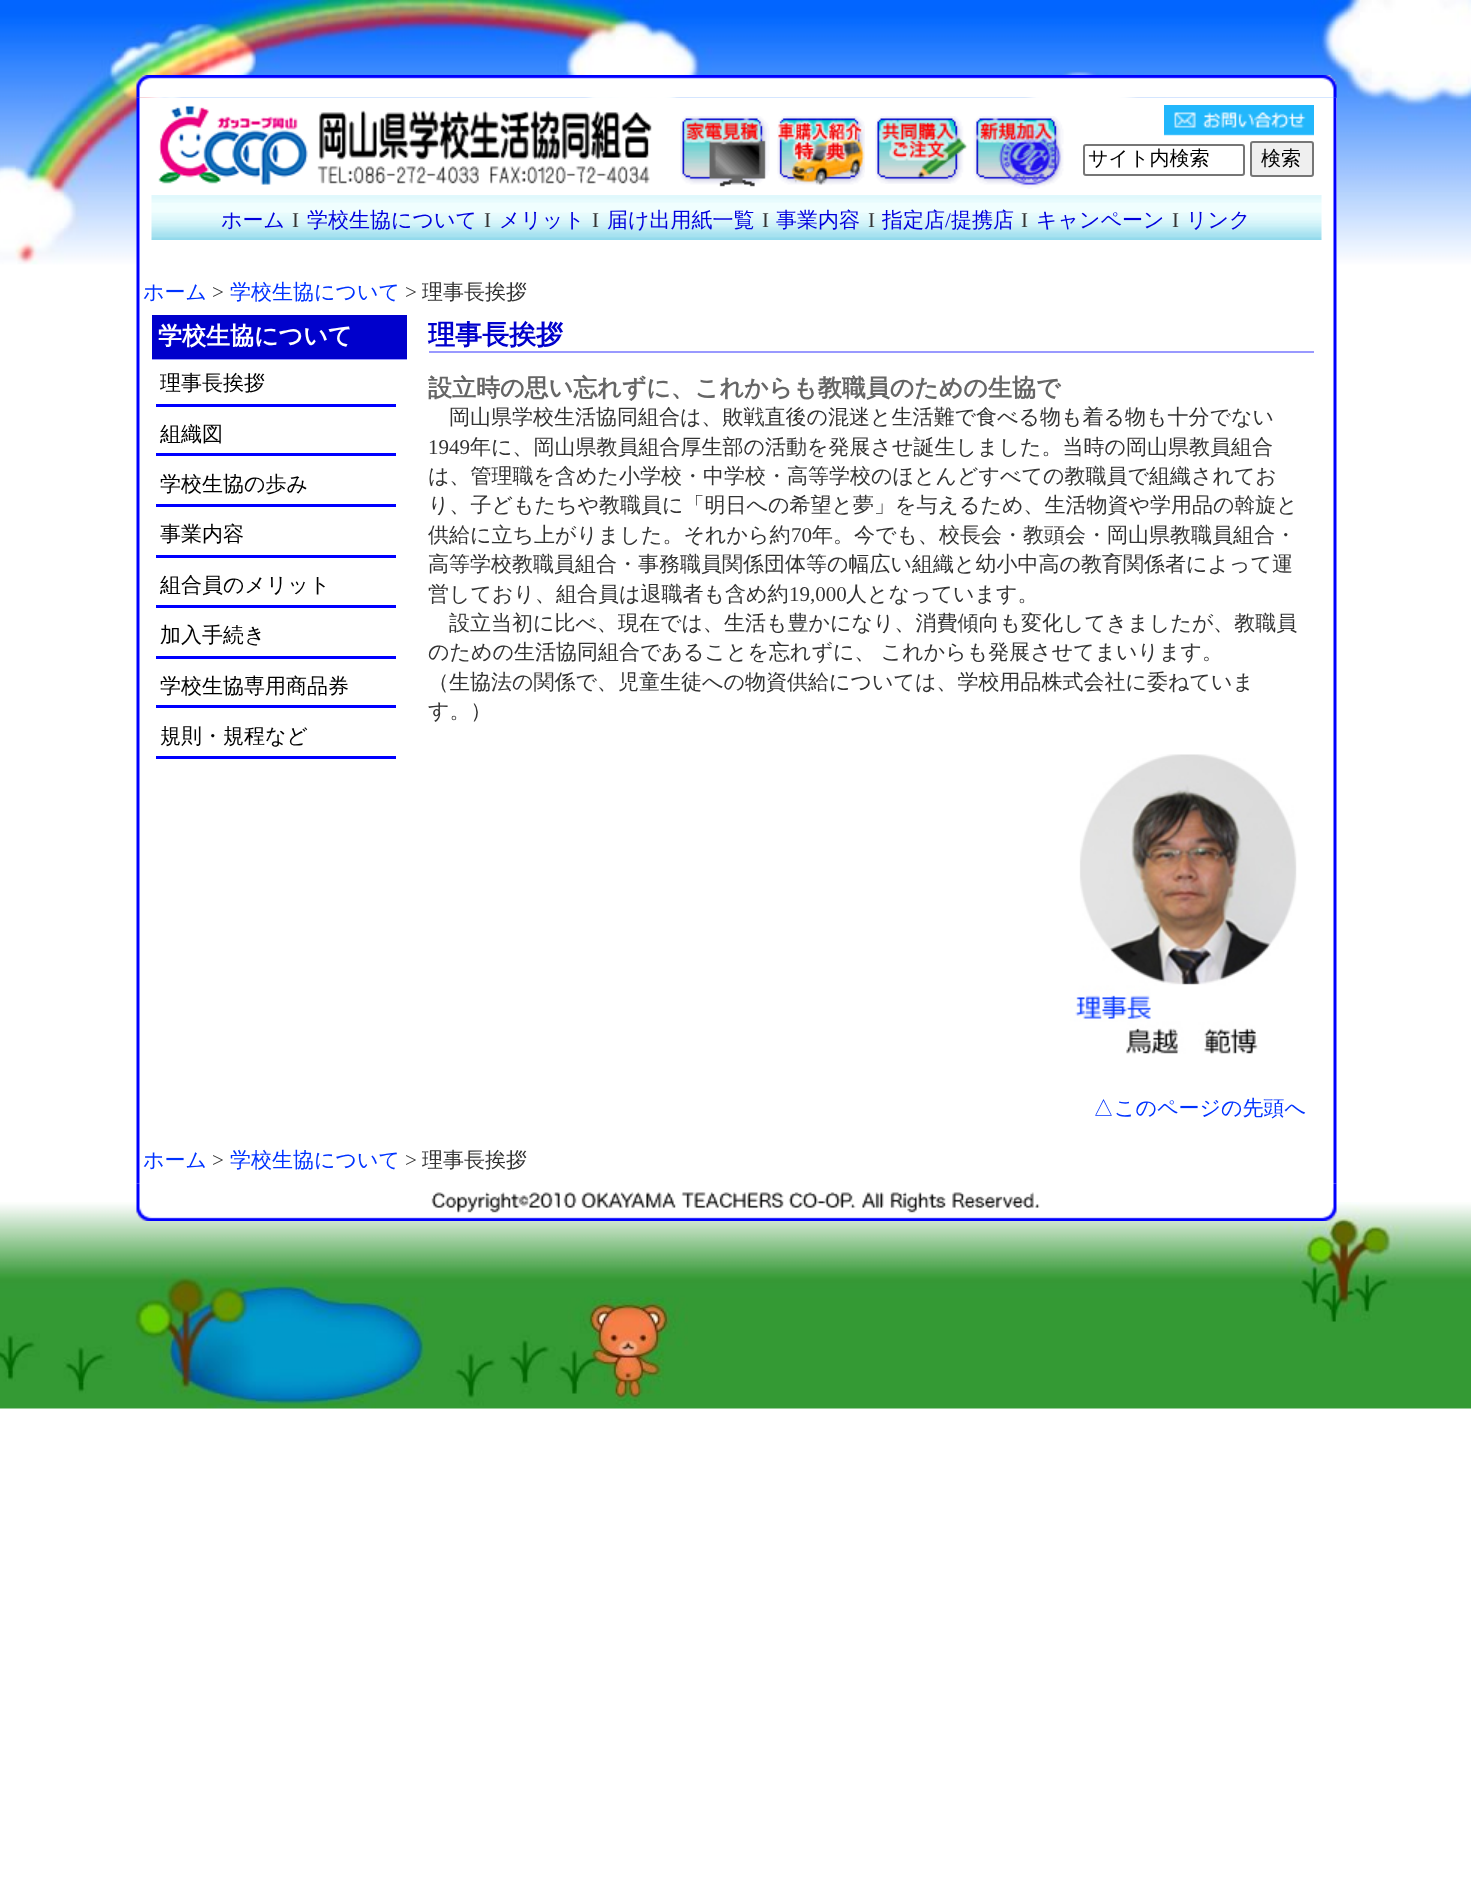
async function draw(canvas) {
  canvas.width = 1471;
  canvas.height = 1901;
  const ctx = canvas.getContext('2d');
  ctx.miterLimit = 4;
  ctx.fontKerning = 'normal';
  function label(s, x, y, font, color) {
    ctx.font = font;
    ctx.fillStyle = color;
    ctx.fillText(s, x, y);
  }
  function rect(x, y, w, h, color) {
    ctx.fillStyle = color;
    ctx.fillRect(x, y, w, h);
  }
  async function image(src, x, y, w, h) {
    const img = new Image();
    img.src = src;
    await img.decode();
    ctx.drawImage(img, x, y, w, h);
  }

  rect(0, 0, 1471, 1901, '#fff');
  await image('assets/img1.png', 0, 0, 1471, 265);
  rect(137, 98, 1200, 166, '#fff');
  await image('assets/img3.png', 136, 97, 1201, 1087);
  await image('assets/img2.png', 136, 75, 1201, 23);
  await image('assets/img4.png', 158, 105, 494, 80);
  await image('assets/img5.png', 680, 116, 90, 71);
  await image('assets/img6.png', 777, 116, 88, 70);
  await image('assets/img7.png', 875, 116, 93, 68);
  await image('assets/img8.png', 973, 116, 91, 73);
  await image('assets/img9.png', 1164, 105, 150, 31);
  ctx.beginPath();
  ctx.roundRect(1084, 145, 160, 30, 2);
  ctx.strokeStyle = '#767676';
  ctx.lineWidth = 2;
  ctx.stroke();
  label('サイト内検索', 1088, 165, '500 20px WenQuanYi Zen Hei', '#000');
  ctx.fillStyle = '#efefef';
  ctx.beginPath();
  ctx.roundRect(1251, 142, 62, 34, 2);
  ctx.fill();
  ctx.stroke();
  label('検索', 1261, 165, '500 20px WenQuanYi Zen Hei', '#000');
  await image('assets/img10.png', 151, 195, 1171, 45);
  label('ホーム', 221, 227, '500 21px WenQuanYi Zen Hei', '#00d');
  label('Ι', 292, 227, '21px Liberation Serif', '#333');
  label('学校生協について', 307, 227, '500 21px WenQuanYi Zen Hei', '#00d');
  label('Ι', 484, 227, '21px Liberation Serif', '#333');
  label('メリット', 499, 227, '500 21px WenQuanYi Zen Hei', '#00d');
  label('Ι', 592, 227, '21px Liberation Serif', '#333');
  label('届け出用紙一覧', 607, 227, '500 21px WenQuanYi Zen Hei', '#00d');
  label('Ι', 762, 227, '21px Liberation Serif', '#333');
  label('事業内容', 776, 227, '500 21px WenQuanYi Zen Hei', '#00d');
  label('Ι', 868, 227, '21px Liberation Serif', '#333');
  label('指定店', 882, 227, '500 21px WenQuanYi Zen Hei', '#00d');
  label('/', 945, 227, '21px Liberation Serif', '#00d');
  label('提携店', 951, 227, '500 21px WenQuanYi Zen Hei', '#00d');
  label('Ι', 1021, 227, '21px Liberation Serif', '#333');
  label('キャンペーン', 1036, 227, '500 21px WenQuanYi Zen Hei', '#00d');
  label('Ι', 1172, 227, '21px Liberation Serif', '#333');
  label('リンク', 1186, 227, '500 21px WenQuanYi Zen Hei', '#00d');
  label('ホーム', 143, 299, '500 21px WenQuanYi Zen Hei', '#03f');
  label('>', 212, 299, '21px Liberation Serif', '#333');
  label('学校生協について', 230, 299, '500 21px WenQuanYi Zen Hei', '#03f');
  label('>', 405, 299, '21px Liberation Serif', '#333');
  label('理事長挨拶', 422, 299, '500 21px WenQuanYi Zen Hei', '#333');
  rect(152, 315, 255, 44, '#00c');
  rect(152, 359, 255, 1, '#99f');
  label('学校生協について', 158, 344, 'bold 24px WenQuanYi Zen Hei', '#fff');
  rect(156, 404, 240, 3, '#00f');
  label('理事長挨拶', 160, 390, '500 21px WenQuanYi Zen Hei', '#000');
  rect(156, 453, 240, 3, '#00f');
  label('組織図', 160, 441, '500 21px WenQuanYi Zen Hei', '#000');
  rect(156, 504, 240, 3, '#00f');
  label('学校生協の歩み', 160, 491, '500 21px WenQuanYi Zen Hei', '#000');
  rect(156, 555, 240, 3, '#00f');
  label('事業内容', 160, 541, '500 21px WenQuanYi Zen Hei', '#000');
  rect(156, 605, 240, 3, '#00f');
  label('組合員のメリット', 160, 592, '500 21px WenQuanYi Zen Hei', '#000');
  rect(156, 656, 240, 3, '#00f');
  label('加入手続き', 160, 642, '500 21px WenQuanYi Zen Hei', '#000');
  rect(156, 705, 240, 3, '#00f');
  label('学校生協専用商品券', 160, 693, '500 21px WenQuanYi Zen Hei', '#000');
  rect(156, 756, 240, 3, '#00f');
  label('規則・規程など', 160, 743, '500 21px WenQuanYi Zen Hei', '#000');
  rect(429, 351, 885, 2, '#99f');
  label('理事長挨拶', 428, 344, 'bold 27px WenQuanYi Zen Hei', '#00c');
  label('設立時の思い忘れずに、これからも教職員のための生協で', 428, 396, 'bold 24px WenQuanYi Zen Hei', '#666');
  label('岡山県学校生活協同組合は、敗戦直後の混迷と生活難で食べる物も着る物も十分でない', 449, 424, '500 21px WenQuanYi Zen Hei', '#333');
  label('1949', 428, 454, '21px Liberation Serif', '#333');
  label('年に、岡山県教員組合厚生部の活動を発展させ誕生しました。当時の岡山県教員組合', 470, 454, '500 21px WenQuanYi Zen Hei', '#333');
  label('は、管理職を含めた小学校・中学校・高等学校のほとんどすべての教職員で組織されてお', 428, 483, '500 21px WenQuanYi Zen Hei', '#333');
  label('り、子どもたちや教職員に「明日への希望と夢」を与えるため、生活物資や学用品の斡旋と', 428, 512, '500 21px WenQuanYi Zen Hei', '#333');
  label('供給に立ち上がりました。それから約', 428, 542, '500 21px WenQuanYi Zen Hei', '#333');
  label('70', 791, 542, '21px Liberation Serif', '#333');
  label('年。今でも、校長会・教頭会・岡山県教職員組合・', 812, 542, '500 21px WenQuanYi Zen Hei', '#333');
  label('高等学校教職員組合・事務職員関係団体等の幅広い組織と幼小中高の教育関係者によって運', 428, 571, '500 21px WenQuanYi Zen Hei', '#333');
  label('営しており、組合員は退職者も含め約', 428, 601, '500 21px WenQuanYi Zen Hei', '#333');
  label('19,000', 789, 601, '21px Liberation Serif', '#333');
  label('人となっています。', 846, 601, '500 21px WenQuanYi Zen Hei', '#333');
  label('設立当初に比べ、現在では、生活も豊かになり、消費傾向も変化してきましたが、教職員', 449, 630, '500 21px WenQuanYi Zen Hei', '#333');
  ctx.wordSpacing = '-1px';
  label('のための生活協同組合であることを忘れずに、 これからも発展させてまいります。', 428, 659, '500 21px WenQuanYi Zen Hei', '#333');
  ctx.wordSpacing = '0px';
  label('（生協法の関係で、児童生徒への物資供給については、学校用品株式会社に委ねていま', 428, 689, '500 21px WenQuanYi Zen Hei', '#333');
  label('す。）', 428, 718, '500 21px WenQuanYi Zen Hei', '#333');
  await image('assets/img11.png', 1070, 754, 227, 300);
  label('△このページの先頭へ', 1093, 1115, '500 21px WenQuanYi Zen Hei', '#03f');
  label('ホーム', 143, 1167, '500 21px WenQuanYi Zen Hei', '#03f');
  label('>', 212, 1167, '21px Liberation Serif', '#333');
  label('学校生協について', 230, 1167, '500 21px WenQuanYi Zen Hei', '#03f');
  label('>', 405, 1167, '21px Liberation Serif', '#333');
  label('理事長挨拶', 422, 1167, '500 21px WenQuanYi Zen Hei', '#333');
  await image('assets/img12.png', 0, 1202, 1471, 207);
  await image('assets/img13.png', 136, 1183, 1201, 38);
}

draw(document.querySelector('canvas'));
